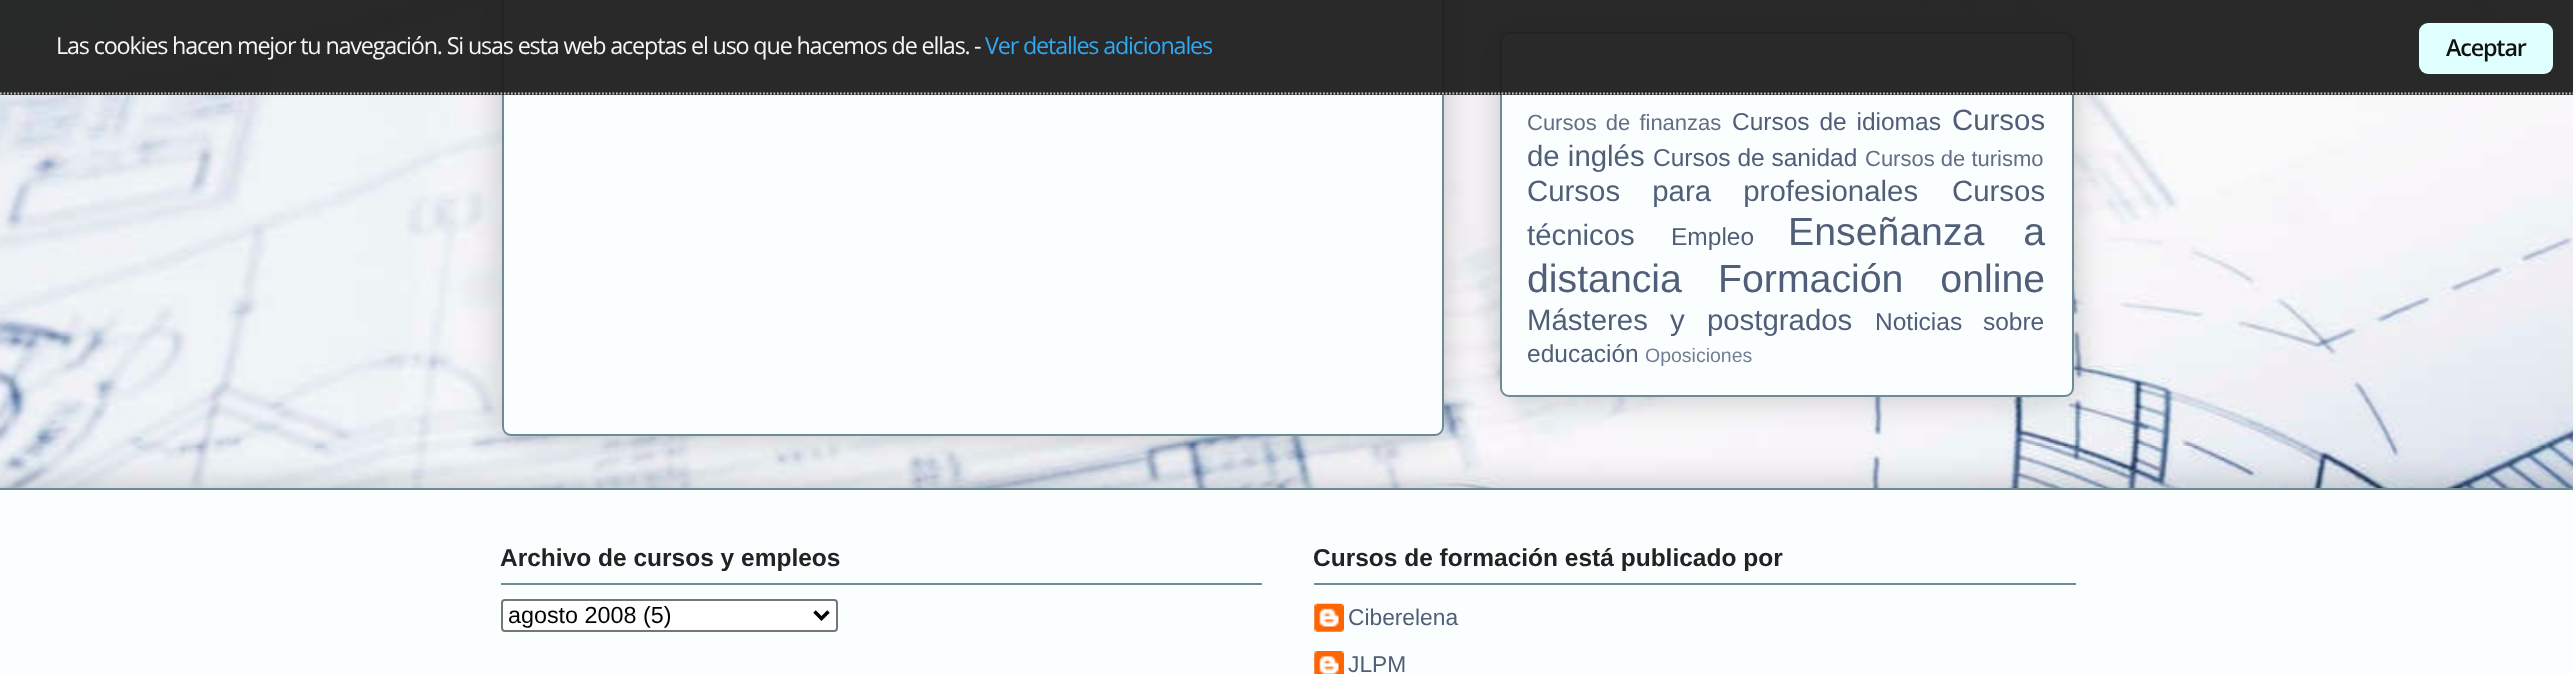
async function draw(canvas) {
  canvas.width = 2573;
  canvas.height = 674;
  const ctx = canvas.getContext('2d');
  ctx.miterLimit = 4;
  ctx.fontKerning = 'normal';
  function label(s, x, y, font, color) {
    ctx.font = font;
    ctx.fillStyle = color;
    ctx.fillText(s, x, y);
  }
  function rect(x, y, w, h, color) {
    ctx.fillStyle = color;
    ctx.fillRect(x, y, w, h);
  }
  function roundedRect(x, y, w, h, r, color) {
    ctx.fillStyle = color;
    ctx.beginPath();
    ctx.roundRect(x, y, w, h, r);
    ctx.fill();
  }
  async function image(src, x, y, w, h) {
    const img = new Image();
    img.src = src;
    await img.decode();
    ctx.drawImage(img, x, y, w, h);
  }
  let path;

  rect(0, 0, 2573, 674, '#fff');
  await image('assets/img1.png', 0, 0, 2573, 488);
  ctx.fillStyle = '#00000033';
  ctx.filter = 'blur(17.5px)';
  ctx.beginPath();
  ctx.roundRect(502, -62, 942, 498, 9);
  ctx.fill();
  ctx.filter = 'none';
  ctx.fillStyle = '#fbfefe';
  ctx.beginPath();
  ctx.roundRect(503, -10, 940, 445, 8);
  ctx.fill();
  ctx.strokeStyle = '#6d8b94';
  ctx.lineWidth = 2;
  ctx.stroke();
  ctx.fillStyle = '#00000033';
  ctx.filter = 'blur(17.5px)';
  ctx.beginPath();
  ctx.roundRect(1500, 32, 574, 365, 9);
  ctx.fill();
  ctx.filter = 'none';
  ctx.fillStyle = '#fbfefe';
  ctx.beginPath();
  ctx.roundRect(1501, 33, 572, 363, 8);
  ctx.fill();
  ctx.stroke();
  rect(1528, 91, 518, 2, '#6d8b94');
  rect(0, 0, 2573, 95, '#1d1d1df2');
  path = new Path2D('M0 93.5H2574');
  ctx.strokeStyle = '#ccc';
  ctx.lineWidth = 1.8;
  ctx.setLineDash([1.75, 1.75]);
  ctx.stroke(path);
  ctx.letterSpacing = '-1.17px';
  label('Las cookies hacen mejor tu navegación. Si usas esta web aceptas el uso que hacemos de ellas.', 56, 54, '23.35px Open Sans', '#f5f5f5');
  label('-', 974, 54, '23.35px Open Sans', '#f5f5f5');
  label('Ver detalles adicionales', 985, 54, '23.35px Open Sans', '#31a8f0');
  roundedRect(2419, 23, 134, 51, 9, '#e0ffff');
  label('Aceptar', 2446, 56, '600 23.35px Open Sans', '#111');
  ctx.letterSpacing = '0px';
  ctx.wordSpacing = '3px';
  label('Cursos de finanzas', 1527, 130, '22px Liberation Sans', '#616e85');
  label('Cursos de idiomas', 1732, 130, '24.5px Liberation Sans', '#505e78');
  ctx.wordSpacing = '0px';
  label('Cursos', 1952, 130, '29.4px Liberation Sans', '#505e78');
  label('de inglés', 1527, 166, '29.4px Liberation Sans', '#505e78');
  label('Cursos de sanidad', 1653, 166, '24.5px Liberation Sans', '#505e78');
  label('Cursos de turismo', 1865, 166, '22px Liberation Sans', '#616e85');
  ctx.wordSpacing = '24px';
  label('Cursos para profesionales', 1527, 201, '29.4px Liberation Sans', '#505e78');
  ctx.wordSpacing = '0px';
  label('Cursos', 1952, 201, '29.4px Liberation Sans', '#505e78');
  label('técnicos', 1527, 245, '29.4px Liberation Sans', '#505e78');
  label('Empleo', 1671, 245, '24.5px Liberation Sans', '#505e78');
  ctx.wordSpacing = '28px';
  label('Enseñanza a', 1788, 245, '39.25px Liberation Sans', '#505e78');
  ctx.wordSpacing = '0px';
  label('distancia', 1527, 292, '39.25px Liberation Sans', '#505e78');
  ctx.wordSpacing = '26px';
  label('Formación online', 1718, 292, '39.25px Liberation Sans', '#505e78');
  ctx.wordSpacing = '14px';
  label('Másteres y postgrados', 1527, 330, '29.4px Liberation Sans', '#505e78');
  label('Noticias sobre', 1875, 330, '24.5px Liberation Sans', '#505e78');
  ctx.wordSpacing = '0px';
  label('educación', 1527, 362, '24.5px Liberation Sans', '#505e78');
  label('Oposiciones', 1645, 362, '19.5px Liberation Sans', '#727e93');
  ctx.fillStyle = '#00000033';
  ctx.filter = 'blur(17.5px)';
  ctx.beginPath();
  ctx.rect(-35, 488, 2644, 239);
  ctx.fill();
  ctx.filter = 'none';
  rect(0, 490, 2573, 184, '#fbfefe');
  rect(0, 488, 2573, 2, '#6d8b94');
  label('Archivo de cursos y empleos', 500, 566, 'bold 24.5px Liberation Sans', '#222');
  rect(501, 583, 761, 2, '#6d8b94');
  ctx.fillStyle = '#fff';
  ctx.beginPath();
  ctx.roundRect(502, 600, 335, 31, 3);
  ctx.fill();
  ctx.strokeStyle = '#767676';
  ctx.lineWidth = 2;
  ctx.setLineDash([]);
  ctx.stroke();
  path = new Path2D('M814.5 611.5L821.5 618.5L828.5 611.5');
  ctx.strokeStyle = '#000';
  ctx.lineWidth = 3.5;
  ctx.stroke(path);
  label('agosto 2008 (5)', 508, 623, '23.35px Liberation Sans', '#000');
  label('Cursos de formación está publicado por', 1313, 566, 'bold 24.5px Liberation Sans', '#222');
  rect(1314, 583, 762, 2, '#6d8b94');
  await image('assets/img2.png', 1314, 603, 30, 29);
  label('Ciberelena', 1348, 625, '22.75px Liberation Sans', '#505e78');
  await image('assets/img3.png', 1314, 651, 30, 23);
  label('JLPM', 1348, 672, '22.75px Liberation Sans', '#505e78');
}

draw(document.querySelector('canvas'));
